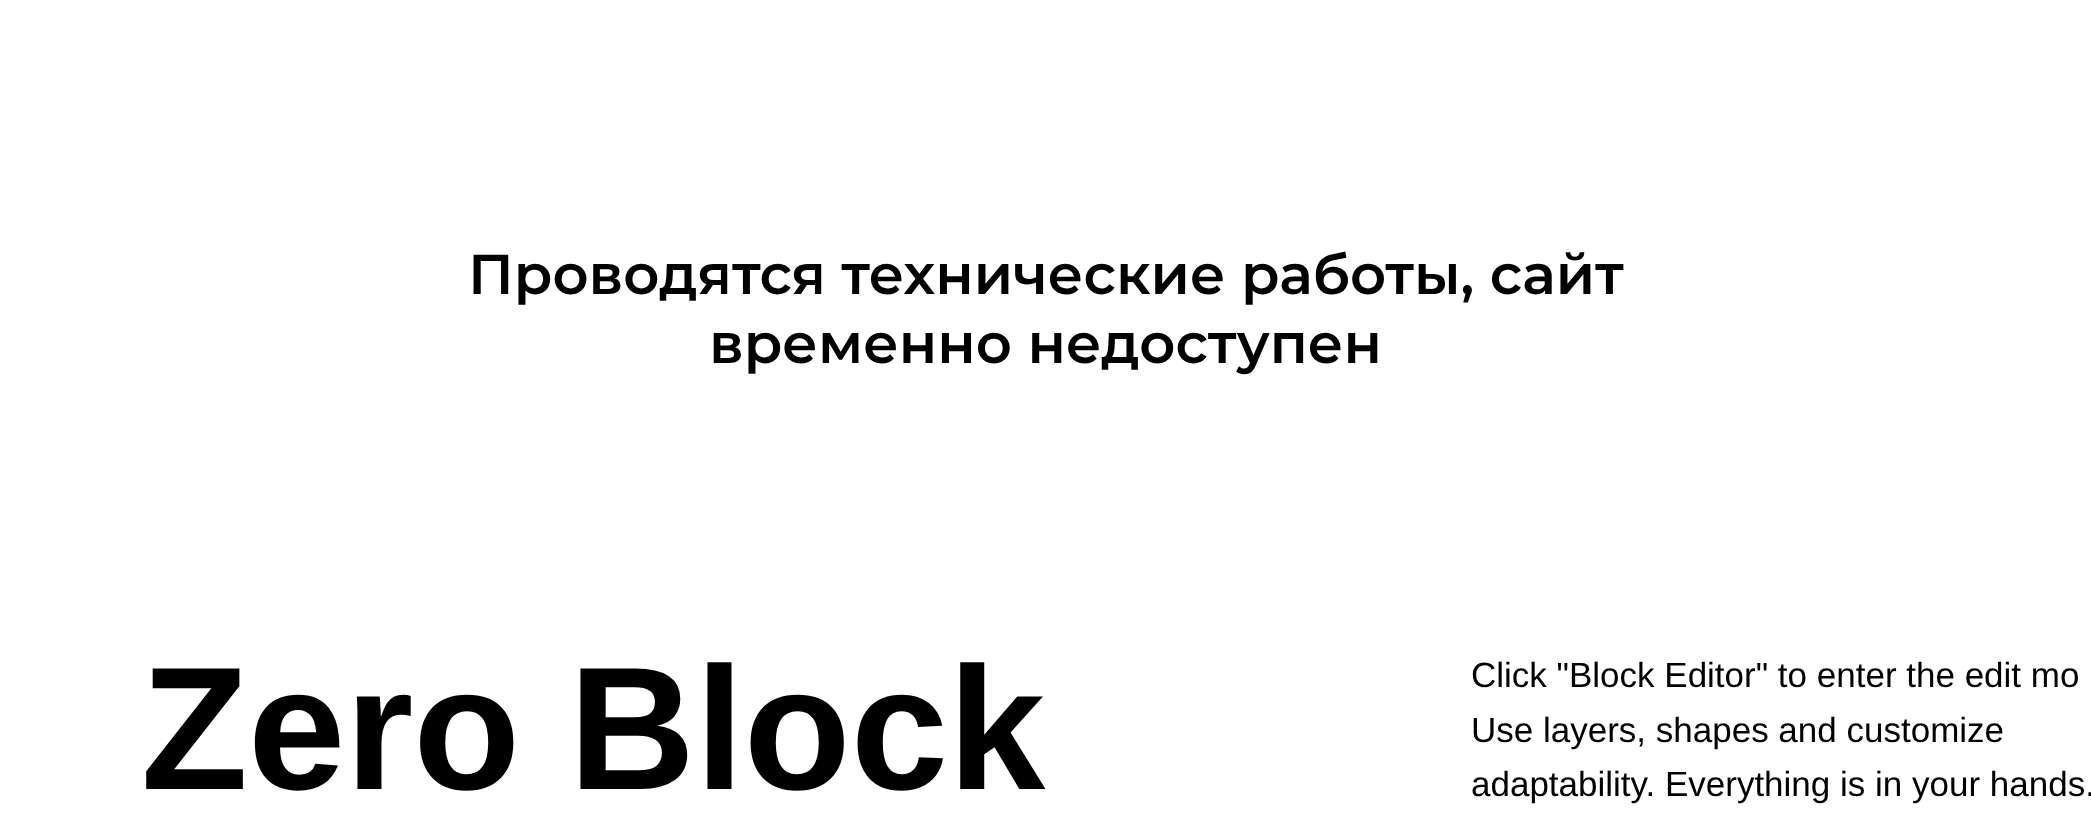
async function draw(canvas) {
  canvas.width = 2091;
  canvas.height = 821;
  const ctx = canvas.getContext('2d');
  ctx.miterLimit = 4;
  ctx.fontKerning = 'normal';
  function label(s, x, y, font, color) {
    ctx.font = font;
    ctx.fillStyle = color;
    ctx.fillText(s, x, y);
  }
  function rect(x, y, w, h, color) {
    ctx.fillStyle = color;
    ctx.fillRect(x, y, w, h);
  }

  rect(0, 0, 2091, 821, '#fff');
  label('Проводятся технические работы, сайт', 468, 294, '600 56px Montserrat', '#000');
  label('временно недоступен', 709, 363, '600 56px Montserrat', '#000');
  label('Zero Block', 141, 789, 'bold 175px Liberation Sans', '#000');
  label('Click "Block Editor" to enter the edit mo', 1471, 687, '35px Liberation Sans', '#000');
  label('Use layers, shapes and customize', 1471, 742, '35px Liberation Sans', '#000');
  label('adaptability. Everything is in your hands.', 1471, 796, '35px Liberation Sans', '#000');
}

draw(document.querySelector('canvas'));
